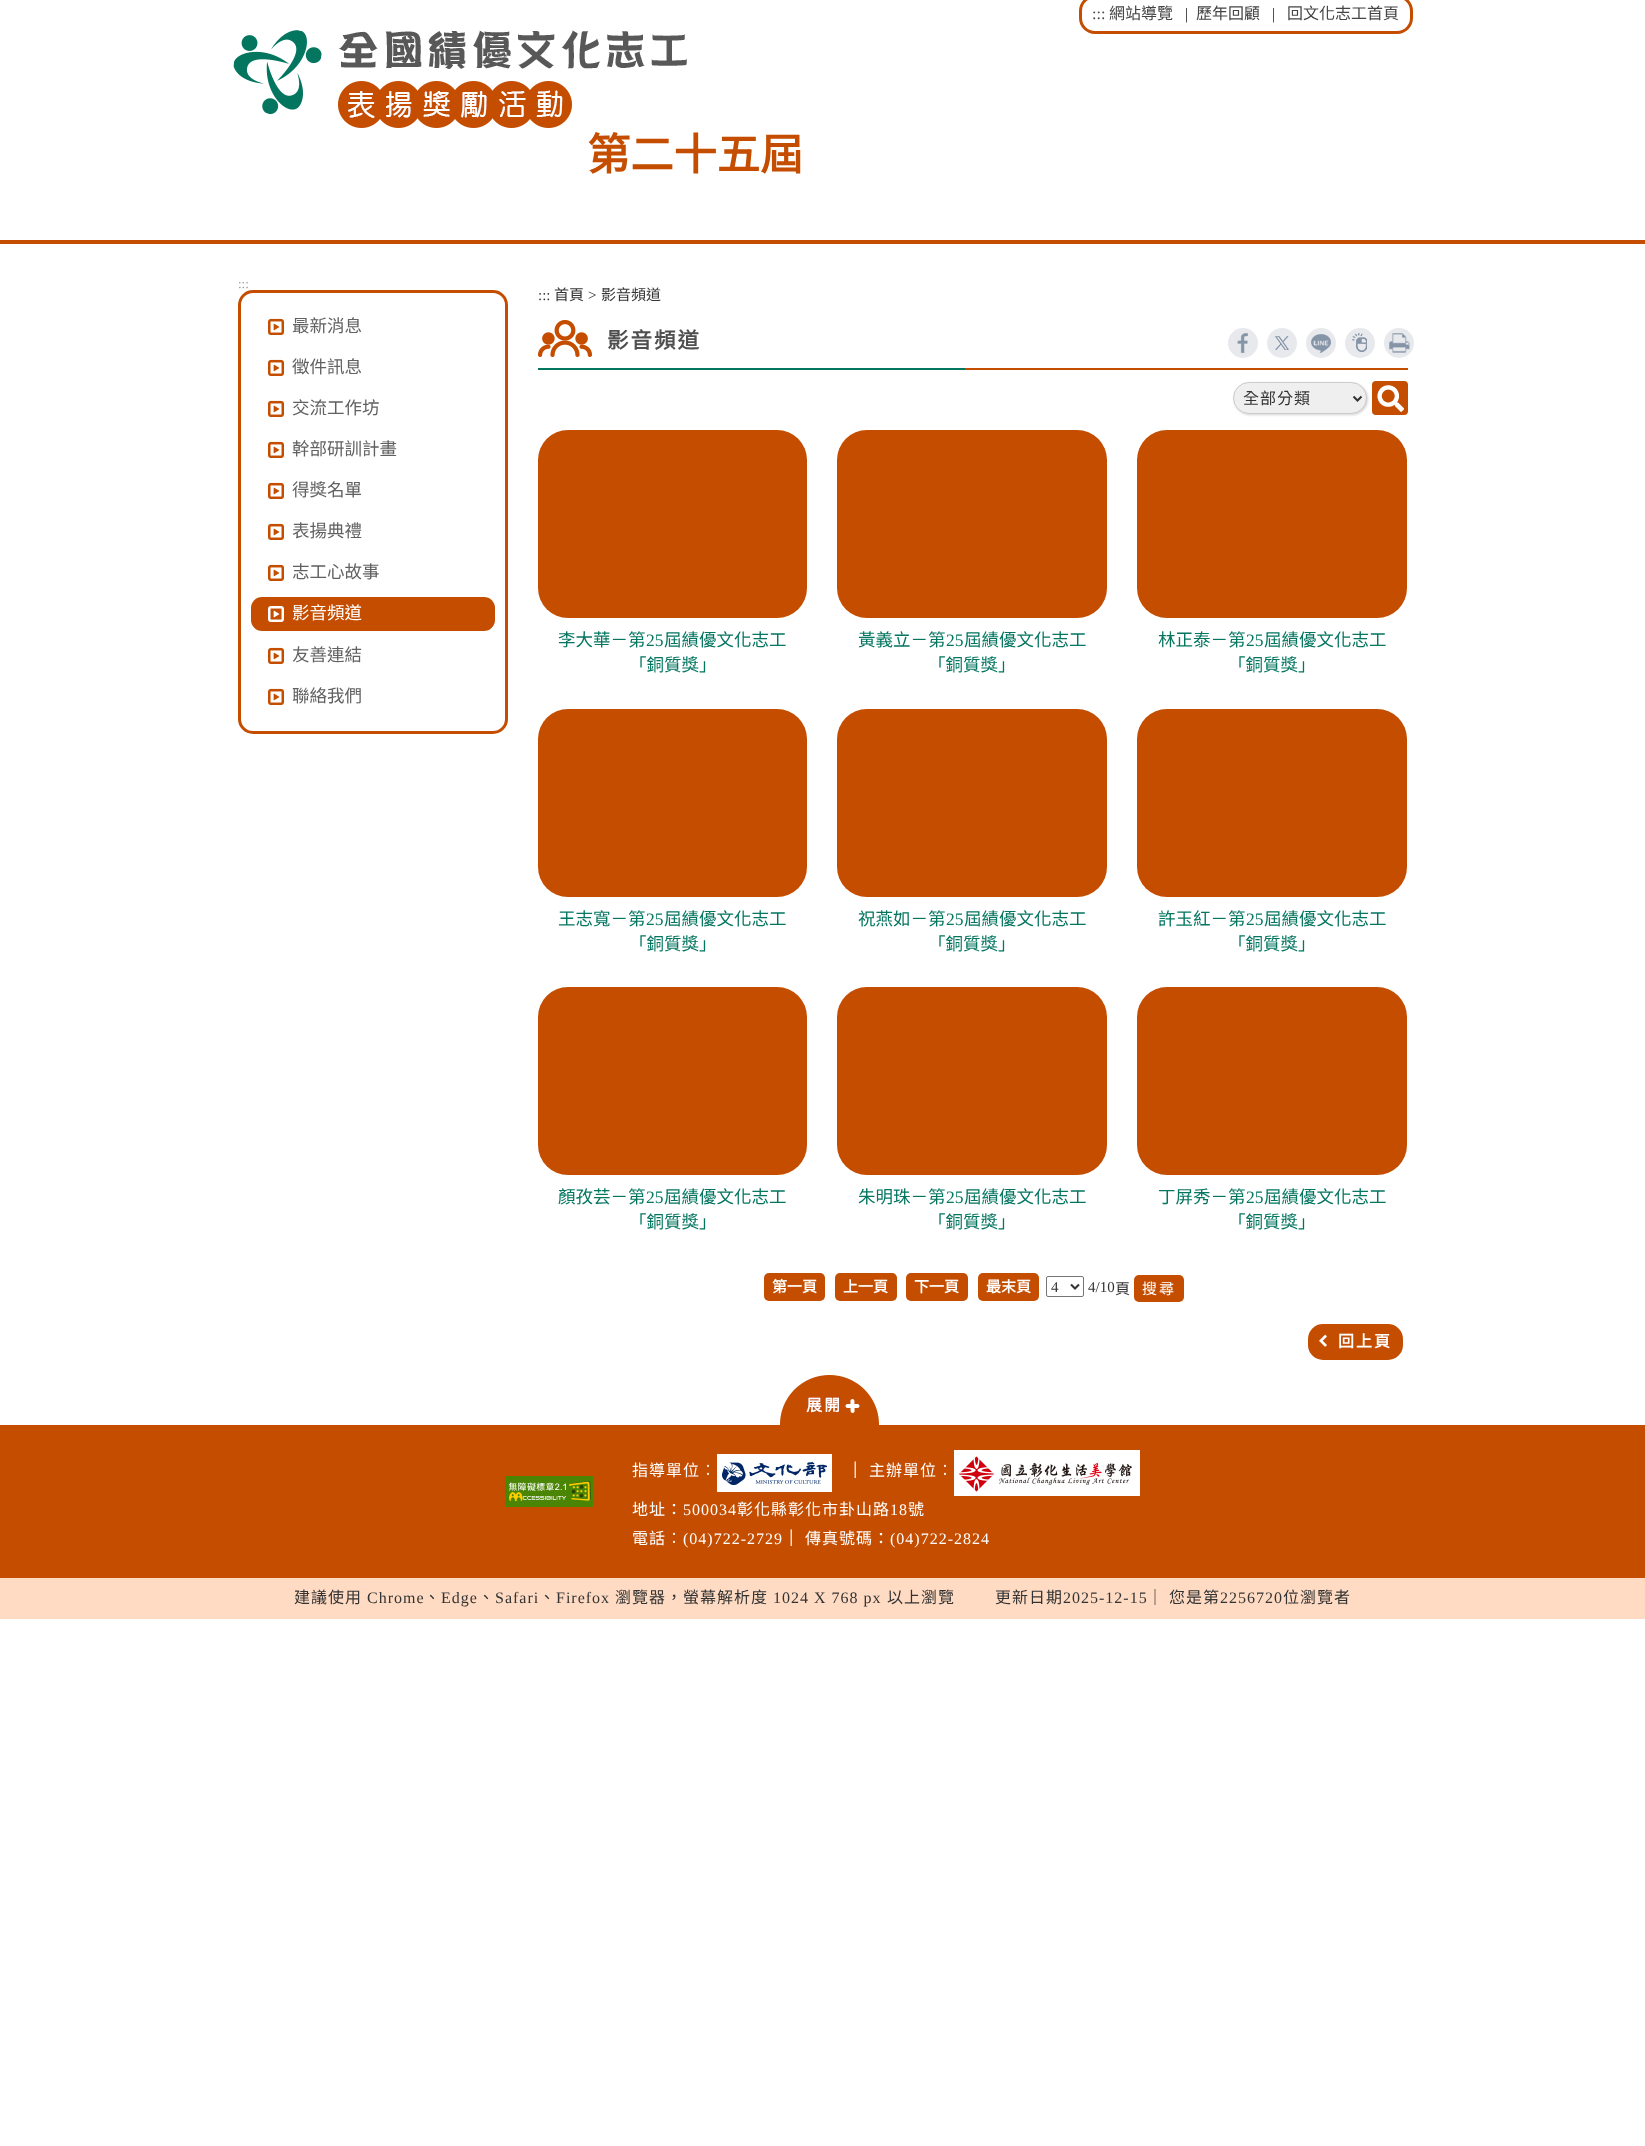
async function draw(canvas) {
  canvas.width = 1645;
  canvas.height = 2146;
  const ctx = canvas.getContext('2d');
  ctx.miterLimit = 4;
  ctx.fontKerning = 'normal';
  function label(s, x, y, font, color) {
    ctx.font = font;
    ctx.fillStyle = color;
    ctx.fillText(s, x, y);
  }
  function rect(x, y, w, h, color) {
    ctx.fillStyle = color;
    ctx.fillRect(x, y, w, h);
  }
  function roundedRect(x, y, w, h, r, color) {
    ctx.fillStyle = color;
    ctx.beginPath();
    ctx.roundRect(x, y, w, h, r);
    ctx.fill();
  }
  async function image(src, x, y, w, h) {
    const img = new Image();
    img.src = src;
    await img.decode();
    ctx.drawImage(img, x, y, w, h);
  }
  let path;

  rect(0, 0, 1645, 2146, '#fff');
  rect(0, 240, 1645, 4, '#c44d00');
  ctx.beginPath();
  ctx.roundRect(1080.5, -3.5, 331, 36, 14.5);
  ctx.strokeStyle = '#c44d00';
  ctx.lineWidth = 3;
  ctx.stroke();
  label(':::', 1092, 19, '16px Liberation Serif', '#454545');
  label('網站導覽', 1109, 19, '16px Noto Sans CJK TC', '#454545');
  label('|', 1185, 19, '16px Liberation Serif', '#282828');
  label('歷年回顧', 1196, 19, '16px Noto Sans CJK TC', '#454545');
  label('|', 1272, 19, '16px Liberation Serif', '#282828');
  label('回文化志工首頁', 1287, 19, '16px Noto Sans CJK TC', '#454545');
  await image('assets/img1.png', 233, 30, 454, 98);
  label('第二十五屆', 587, 170, 'bold 43.25px Noto Sans CJK TC', '#c44d00');
  label(':::', 238, 288, '13px Liberation Serif', '#999');
  ctx.beginPath();
  ctx.roundRect(239.5, 291.5, 267, 441, 13.5);
  ctx.stroke();
  await image('assets/img2.png', 268, 318, 16, 17);
  label('最新消息', 292, 332, '17.5px Noto Sans CJK TC', '#616161');
  await image('assets/img2.png', 268, 359, 16, 17);
  label('徵件訊息', 292, 373, '17.5px Noto Sans CJK TC', '#616161');
  await image('assets/img2.png', 268, 400, 16, 17);
  label('交流工作坊', 292, 414, '17.5px Noto Sans CJK TC', '#616161');
  await image('assets/img2.png', 268, 441, 16, 17);
  label('幹部研訓計畫', 292, 455, '17.5px Noto Sans CJK TC', '#616161');
  await image('assets/img2.png', 268, 482, 16, 17);
  label('得獎名單', 292, 496, '17.5px Noto Sans CJK TC', '#616161');
  await image('assets/img2.png', 268, 523, 16, 17);
  label('表揚典禮', 292, 537, '17.5px Noto Sans CJK TC', '#616161');
  await image('assets/img2.png', 268, 564, 16, 17);
  label('志工心故事', 292, 578, '17.5px Noto Sans CJK TC', '#616161');
  roundedRect(251, 597, 244, 34, 11, '#c44d00');
  await image('assets/img3.png', 268, 606, 16, 16);
  label('影音頻道', 292, 619, '17.5px Noto Sans CJK TC', '#fff');
  await image('assets/img2.png', 268, 647, 16, 17);
  label('友善連結', 292, 661, '17.5px Noto Sans CJK TC', '#616161');
  await image('assets/img2.png', 268, 688, 16, 17);
  label('聯絡我們', 292, 702, '17.5px Noto Sans CJK TC', '#616161');
  label(':::', 538, 300, '15px Liberation Serif', '#333');
  label('首頁', 554, 300, '15px Noto Sans CJK TC', '#333');
  label('>', 588, 300, '15px Liberation Serif', '#333');
  label('影音頻道', 601, 300, '15px Noto Sans CJK TC', '#333');
  await image('assets/img4.png', 538, 368, 870, 2);
  await image('assets/img5.png', 538, 320, 54, 37);
  ctx.letterSpacing = '2px';
  label('影音頻道', 607, 348, 'bold 21.5px Noto Sans CJK TC', '#4f4f4f');
  ctx.fillStyle = '#e7e9ec';
  ctx.beginPath();
  ctx.arc(1243, 343, 15, 0, 2 * Math.PI);
  ctx.fill();
  await image('assets/img6.png', 1237, 333, 11, 20);
  ctx.beginPath();
  ctx.arc(1282, 343, 15, 0, 2 * Math.PI);
  ctx.fill();
  await image('assets/img7.png', 1275, 336, 14, 14);
  ctx.beginPath();
  ctx.arc(1321, 343, 15, 0, 2 * Math.PI);
  ctx.fill();
  await image('assets/img8.png', 1311, 334, 20, 19);
  ctx.beginPath();
  ctx.arc(1360, 343, 15, 0, 2 * Math.PI);
  ctx.fill();
  await image('assets/img9.png', 1352, 333, 15, 19);
  ctx.beginPath();
  ctx.arc(1399, 343, 15, 0, 2 * Math.PI);
  ctx.fill();
  await image('assets/img10.png', 1389, 333, 21, 20);
  ctx.fillStyle = '#c4c4c4bf';
  ctx.filter = 'blur(1px)';
  ctx.beginPath();
  ctx.roundRect(1234, 383, 134, 32, 16);
  ctx.fill();
  ctx.filter = 'none';
  ctx.fillStyle = '#efefef';
  ctx.beginPath();
  ctx.roundRect(1233.5, 382.5, 133, 31, 15.5);
  ctx.fill();
  ctx.strokeStyle = '#ccc';
  ctx.lineWidth = 1;
  ctx.stroke();
  path = new Path2D('M1353.5 396.5L1357.5 400.5L1361.5 396.5');
  ctx.strokeStyle = '#333';
  ctx.lineWidth = 2;
  ctx.stroke(path);
  ctx.letterSpacing = '1px';
  label('全部分類', 1243, 404, '16px Noto Sans CJK TC', '#333');
  roundedRect(1372, 381, 36, 34, 4, '#c44d00');
  await image('assets/img11.png', 1377, 385, 27, 27);
  roundedRect(538, 430, 269, 188, 30, '#c44d00');
  ctx.letterSpacing = '0px';
  label('李大華－第', 558, 646, '17.5px Noto Sans CJK TC', '#047660');
  label('25', 646, 646, '17.5px Liberation Serif', '#047660');
  label('屆績優文化志工', 664, 646, '17.5px Noto Sans CJK TC', '#047660');
  label('「銅質獎」', 629, 671, '17.5px Noto Sans CJK TC', '#047660');
  roundedRect(837, 430, 270, 188, 30, '#c44d00');
  label('黃義立－第', 858, 646, '17.5px Noto Sans CJK TC', '#047660');
  label('25', 946, 646, '17.5px Liberation Serif', '#047660');
  label('屆績優文化志工', 964, 646, '17.5px Noto Sans CJK TC', '#047660');
  label('「銅質獎」', 928, 671, '17.5px Noto Sans CJK TC', '#047660');
  roundedRect(1137, 430, 270, 188, 30, '#c44d00');
  label('林正泰－第', 1158, 646, '17.5px Noto Sans CJK TC', '#047660');
  label('25', 1246, 646, '17.5px Liberation Serif', '#047660');
  label('屆績優文化志工', 1264, 646, '17.5px Noto Sans CJK TC', '#047660');
  label('「銅質獎」', 1228, 671, '17.5px Noto Sans CJK TC', '#047660');
  roundedRect(538, 709, 269, 188, 30, '#c44d00');
  label('王志寬－第', 558, 925, '17.5px Noto Sans CJK TC', '#047660');
  label('25', 646, 925, '17.5px Liberation Serif', '#047660');
  label('屆績優文化志工', 664, 925, '17.5px Noto Sans CJK TC', '#047660');
  label('「銅質獎」', 629, 950, '17.5px Noto Sans CJK TC', '#047660');
  roundedRect(837, 709, 270, 188, 30, '#c44d00');
  label('祝燕如－第', 858, 925, '17.5px Noto Sans CJK TC', '#047660');
  label('25', 946, 925, '17.5px Liberation Serif', '#047660');
  label('屆績優文化志工', 964, 925, '17.5px Noto Sans CJK TC', '#047660');
  label('「銅質獎」', 928, 950, '17.5px Noto Sans CJK TC', '#047660');
  roundedRect(1137, 709, 270, 188, 30, '#c44d00');
  label('許玉紅－第', 1158, 925, '17.5px Noto Sans CJK TC', '#047660');
  label('25', 1246, 925, '17.5px Liberation Serif', '#047660');
  label('屆績優文化志工', 1264, 925, '17.5px Noto Sans CJK TC', '#047660');
  label('「銅質獎」', 1228, 950, '17.5px Noto Sans CJK TC', '#047660');
  roundedRect(538, 987, 269, 188, 30, '#c44d00');
  label('顏孜芸－第', 558, 1203, '17.5px Noto Sans CJK TC', '#047660');
  label('25', 646, 1203, '17.5px Liberation Serif', '#047660');
  label('屆績優文化志工', 664, 1203, '17.5px Noto Sans CJK TC', '#047660');
  label('「銅質獎」', 629, 1228, '17.5px Noto Sans CJK TC', '#047660');
  roundedRect(837, 987, 270, 188, 30, '#c44d00');
  label('朱明珠－第', 858, 1203, '17.5px Noto Sans CJK TC', '#047660');
  label('25', 946, 1203, '17.5px Liberation Serif', '#047660');
  label('屆績優文化志工', 964, 1203, '17.5px Noto Sans CJK TC', '#047660');
  label('「銅質獎」', 928, 1228, '17.5px Noto Sans CJK TC', '#047660');
  roundedRect(1137, 987, 270, 188, 30, '#c44d00');
  label('丁屏秀－第', 1158, 1203, '17.5px Noto Sans CJK TC', '#047660');
  label('25', 1246, 1203, '17.5px Liberation Serif', '#047660');
  label('屆績優文化志工', 1264, 1203, '17.5px Noto Sans CJK TC', '#047660');
  label('「銅質獎」', 1228, 1228, '17.5px Noto Sans CJK TC', '#047660');
  roundedRect(764, 1273, 61, 28, 5, '#c44d00');
  label('第一頁', 772, 1292, 'bold 15px Noto Sans CJK TC', '#fff');
  roundedRect(835, 1273, 62, 28, 5, '#c44d00');
  label('上一頁', 843, 1292, 'bold 15px Noto Sans CJK TC', '#fff');
  roundedRect(906, 1273, 62, 28, 5, '#c44d00');
  label('下一頁', 914, 1292, 'bold 15px Noto Sans CJK TC', '#fff');
  roundedRect(978, 1273, 61, 28, 5, '#c44d00');
  label('最末頁', 986, 1292, 'bold 15px Noto Sans CJK TC', '#fff');
  ctx.beginPath();
  ctx.roundRect(1046.5, 1276.5, 37, 20, 1.5);
  ctx.strokeStyle = '#767676';
  ctx.lineWidth = 1;
  ctx.stroke();
  path = new Path2D('M1071 1284.5L1075 1288.5L1079 1284.5');
  ctx.strokeStyle = '#333';
  ctx.lineWidth = 2;
  ctx.stroke(path);
  label('4', 1051, 1292, '15px Liberation Serif', '#333');
  label('4/10', 1088, 1292, '15px Liberation Serif', '#333');
  label('頁', 1115, 1294, '15px Noto Sans CJK TC', '#333');
  roundedRect(1134, 1275, 50, 27, 5, '#c44d00');
  ctx.letterSpacing = '2px';
  label('搜尋', 1142, 1294, '15px Noto Sans CJK TC', '#fff');
  roundedRect(1308, 1324, 95, 36, 15, '#c44d00');
  await image('assets/img12.png', 1319, 1334, 8, 13);
  label('回上頁', 1338, 1347, 'bold 16px Noto Sans CJK TC', '#fff');
  rect(0, 1425, 1645, 153, '#c44d00');
  await image('assets/img13.png', 780, 1375, 99, 50);
  await image('assets/img14.png', 505, 1476, 88, 31);
  ctx.letterSpacing = '1px';
  label('指導單位︰', 632, 1476, '16px Noto Sans CJK TC', '#fff');
  await image('assets/img15.png', 717, 1454, 115, 38);
  label('｜', 847, 1476, 'bold 16px Noto Sans CJK TC', '#fff');
  label('主辦單位︰', 869, 1476, '16px Noto Sans CJK TC', '#fff');
  await image('assets/img16.png', 954, 1450, 186, 46);
  label('地址：', 632, 1515, '16px Noto Sans CJK TC', '#fff');
  label('500034', 683, 1515, '16px Liberation Serif', '#fff');
  label('彰化縣彰化市卦山路', 737, 1515, '16px Noto Sans CJK TC', '#fff');
  label('18', 890, 1515, '16px Liberation Serif', '#fff');
  label('號', 908, 1515, '16px Noto Sans CJK TC', '#fff');
  label('電話︰', 632, 1544, '16px Noto Sans CJK TC', '#fff');
  label('(04)722-2729', 683, 1544, '16px Liberation Serif', '#fff');
  label('｜', 783, 1544, 'bold 16px Noto Sans CJK TC', '#fff');
  label('傳真號碼：', 805, 1544, '16px Noto Sans CJK TC', '#fff');
  label('(04)722-2824', 890, 1544, '16px Liberation Serif', '#fff');
  rect(0, 1578, 1645, 41, '#ffdbc3');
  label('建議使用', 294, 1603, '16px Noto Sans CJK TC', '#333');
  label('Chrome', 367, 1603, '16px Liberation Serif', '#333');
  label('、', 424, 1603, '16px Noto Sans CJK TC', '#333');
  label('Edge', 441, 1603, '16px Liberation Serif', '#333');
  label('、', 478, 1603, '16px Noto Sans CJK TC', '#333');
  label('Safari', 495, 1603, '16px Liberation Serif', '#333');
  label('、', 539, 1603, '16px Noto Sans CJK TC', '#333');
  label('Firefox', 556, 1603, '16px Liberation Serif', '#333');
  label('瀏覽器，螢幕解析度', 615, 1603, '16px Noto Sans CJK TC', '#333');
  label('1024 X 768 px', 773, 1603, '16px Liberation Serif', '#333');
  label('以上瀏覽', 887, 1603, '16px Noto Sans CJK TC', '#333');
  label('更新日期', 995, 1603, '16px Noto Sans CJK TC', '#333');
  label('2025-12-15', 1063, 1603, '16px Liberation Serif', '#333');
  label('｜', 1147, 1603, '16px Noto Sans CJK TC', '#333');
  label('您是第', 1169, 1603, '16px Noto Sans CJK TC', '#333');
  label('2256720', 1220, 1603, '16px Liberation Serif', '#333');
  label('位瀏覽者', 1283, 1603, '16px Noto Sans CJK TC', '#333');
}

draw(document.querySelector('canvas'));
